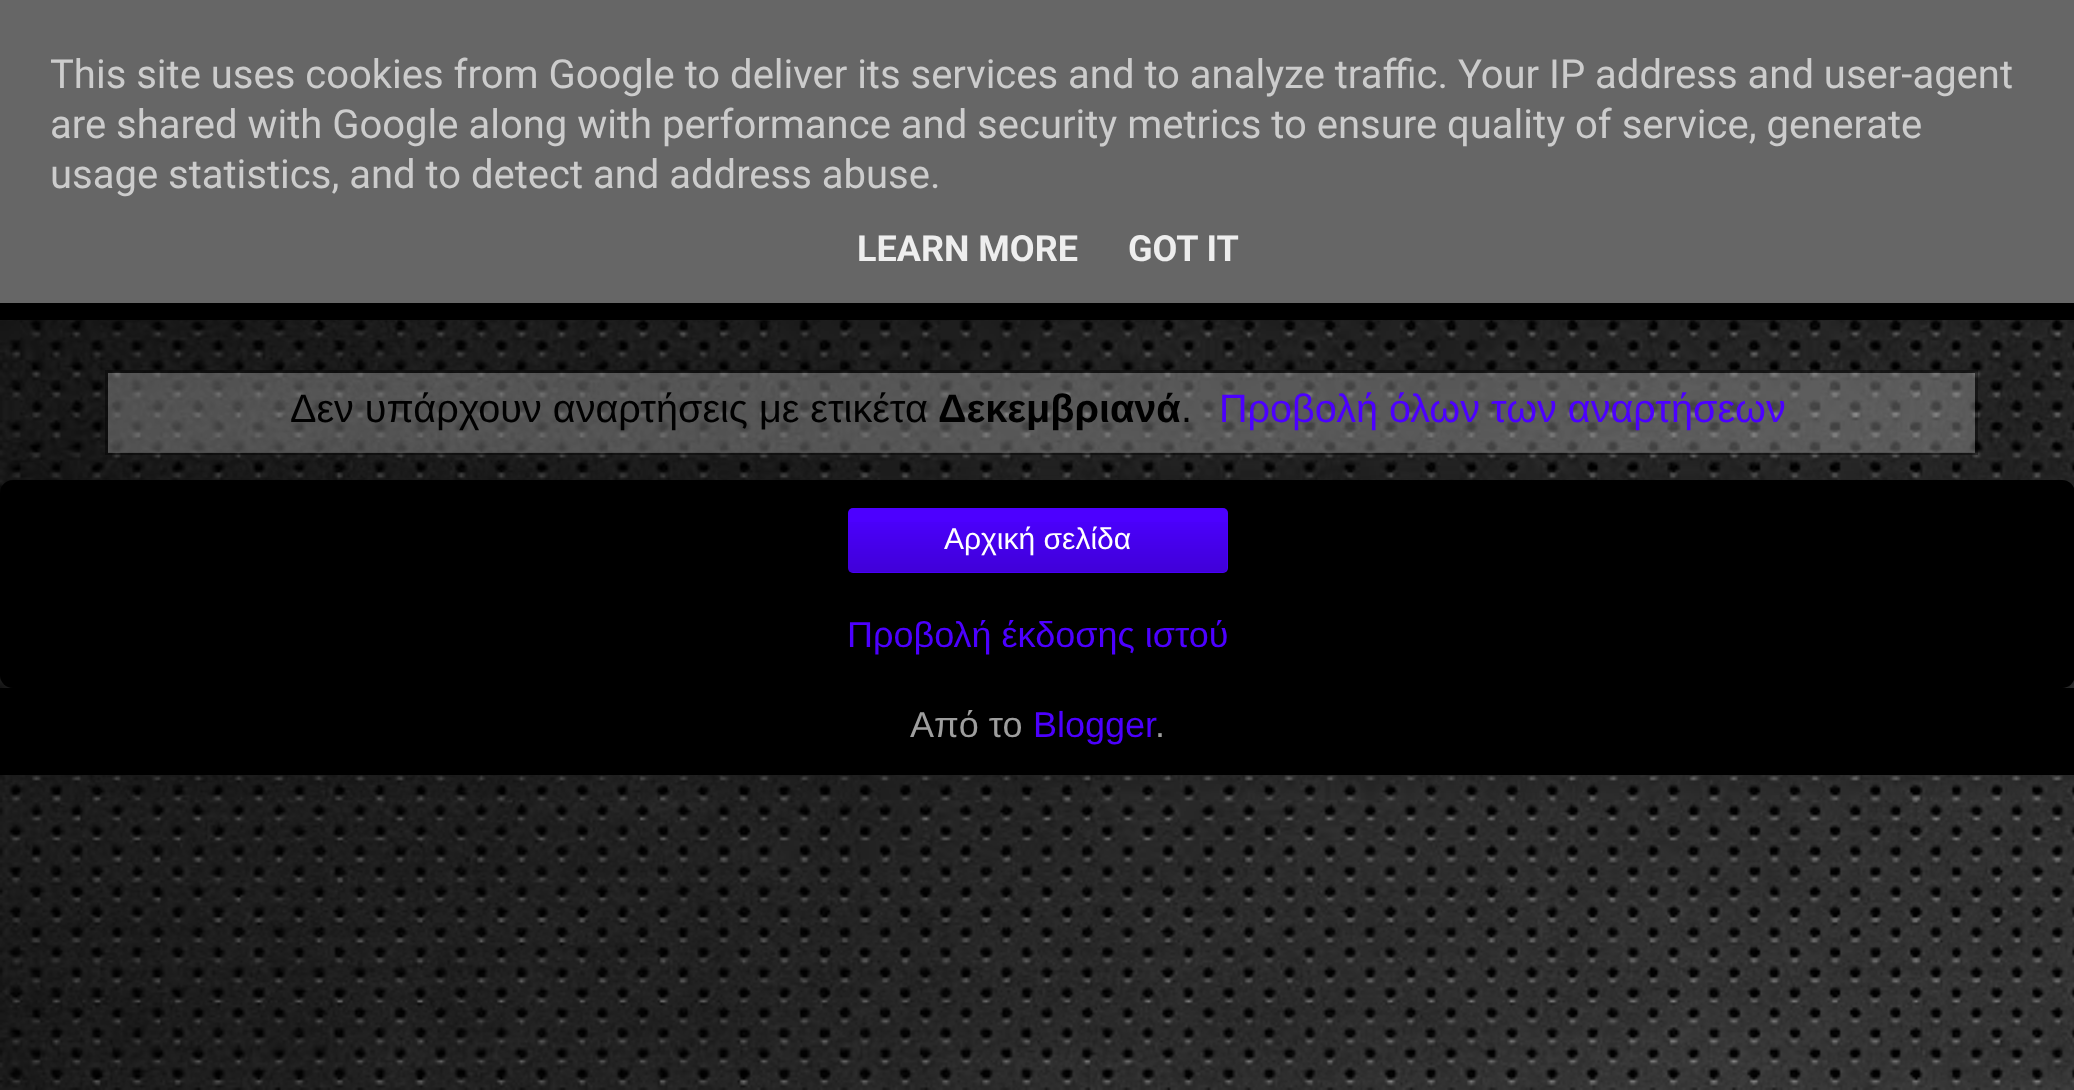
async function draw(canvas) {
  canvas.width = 2074;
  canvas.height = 1090;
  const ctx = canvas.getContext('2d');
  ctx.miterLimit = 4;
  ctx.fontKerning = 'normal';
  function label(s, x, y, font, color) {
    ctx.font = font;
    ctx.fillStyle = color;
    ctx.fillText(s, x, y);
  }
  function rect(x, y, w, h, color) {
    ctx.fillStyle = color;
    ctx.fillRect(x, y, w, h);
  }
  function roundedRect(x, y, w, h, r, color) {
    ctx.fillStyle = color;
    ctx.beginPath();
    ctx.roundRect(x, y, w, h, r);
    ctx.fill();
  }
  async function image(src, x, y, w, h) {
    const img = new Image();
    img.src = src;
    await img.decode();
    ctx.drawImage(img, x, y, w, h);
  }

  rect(0, 0, 2074, 1090, '#fff');
  await image('assets/img1.png', 0, 320, 2074, 770);
  rect(0, 0, 2074, 303, '#666');
  label('This site uses cookies from Google to deliver its services and to analyze traffic. Your IP address and user-agent', 50, 88, '40px Roboto', '#ccc');
  label('are shared with Google along with performance and security metrics to ensure quality of service, generate', 50, 138, '40px Roboto', '#ccc');
  label('usage statistics, and to detect and address abuse.', 50, 188, '40px Roboto', '#ccc');
  label('LEARN MORE', 857, 261, 'bold 36px Roboto', '#eee');
  label('GOT IT', 1128, 261, 'bold 36px Roboto', '#eee');
  rect(0, 303, 2074, 17, '#000');
  ctx.fillStyle = '#00000033';
  ctx.filter = 'blur(25px)';
  ctx.beginPath();
  ctx.roundRect(0, 480, 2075, 208, 13);
  ctx.fill();
  ctx.filter = 'none';
  ctx.strokeStyle = '#00000066';
  ctx.lineWidth = 3;
  ctx.strokeRect(106.5, 371.5, 1870, 82);
  rect(108, 373, 1867, 80, '#cccccc52');
  label('Δεν υπάρχουν αναρτήσεις με ετικέτα', 290, 422, '39.6px Liberation Sans', '#000');
  label('Δεκεμβριανά', 938, 422, 'bold 39.6px Liberation Sans', '#000');
  label('.', 1181, 422, '39.6px Liberation Sans', '#000');
  label('Προβολή όλων των αναρτήσεων', 1219, 422, '39.6px Liberation Sans', '#4c00ff');
  roundedRect(0, 480, 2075, 208, 13, '#000');
  roundedRect(848, 508, 380, 65, 5, '#4c00ff');
  await image('assets/img2.png', 848, 522, 380, 51);
  label('Αρχική σελίδα', 944, 549, '30px Liberation Sans', '#fff');
  label('Προβολή έκδοσης ιστού', 847, 647, '36px Liberation Sans', '#4c00ff');
  ctx.save();
  ctx.beginPath();
  ctx.rect(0, 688, 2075, 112);
  ctx.clip();
  ctx.fillStyle = '#00000033';
  ctx.filter = 'blur(25px)';
  ctx.beginPath();
  ctx.rect(0, 688, 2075, 87);
  ctx.fill();
  ctx.filter = 'none';
  ctx.restore();
  rect(0, 688, 2074, 87, '#000');
  label('Από το', 910, 737, '36px Liberation Sans', '#9e9e9e');
  label('Blogger', 1033, 737, '36px Liberation Sans', '#4c00ff');
  label('.', 1155, 737, '36px Liberation Sans', '#9e9e9e');
}

draw(document.querySelector('canvas'));
